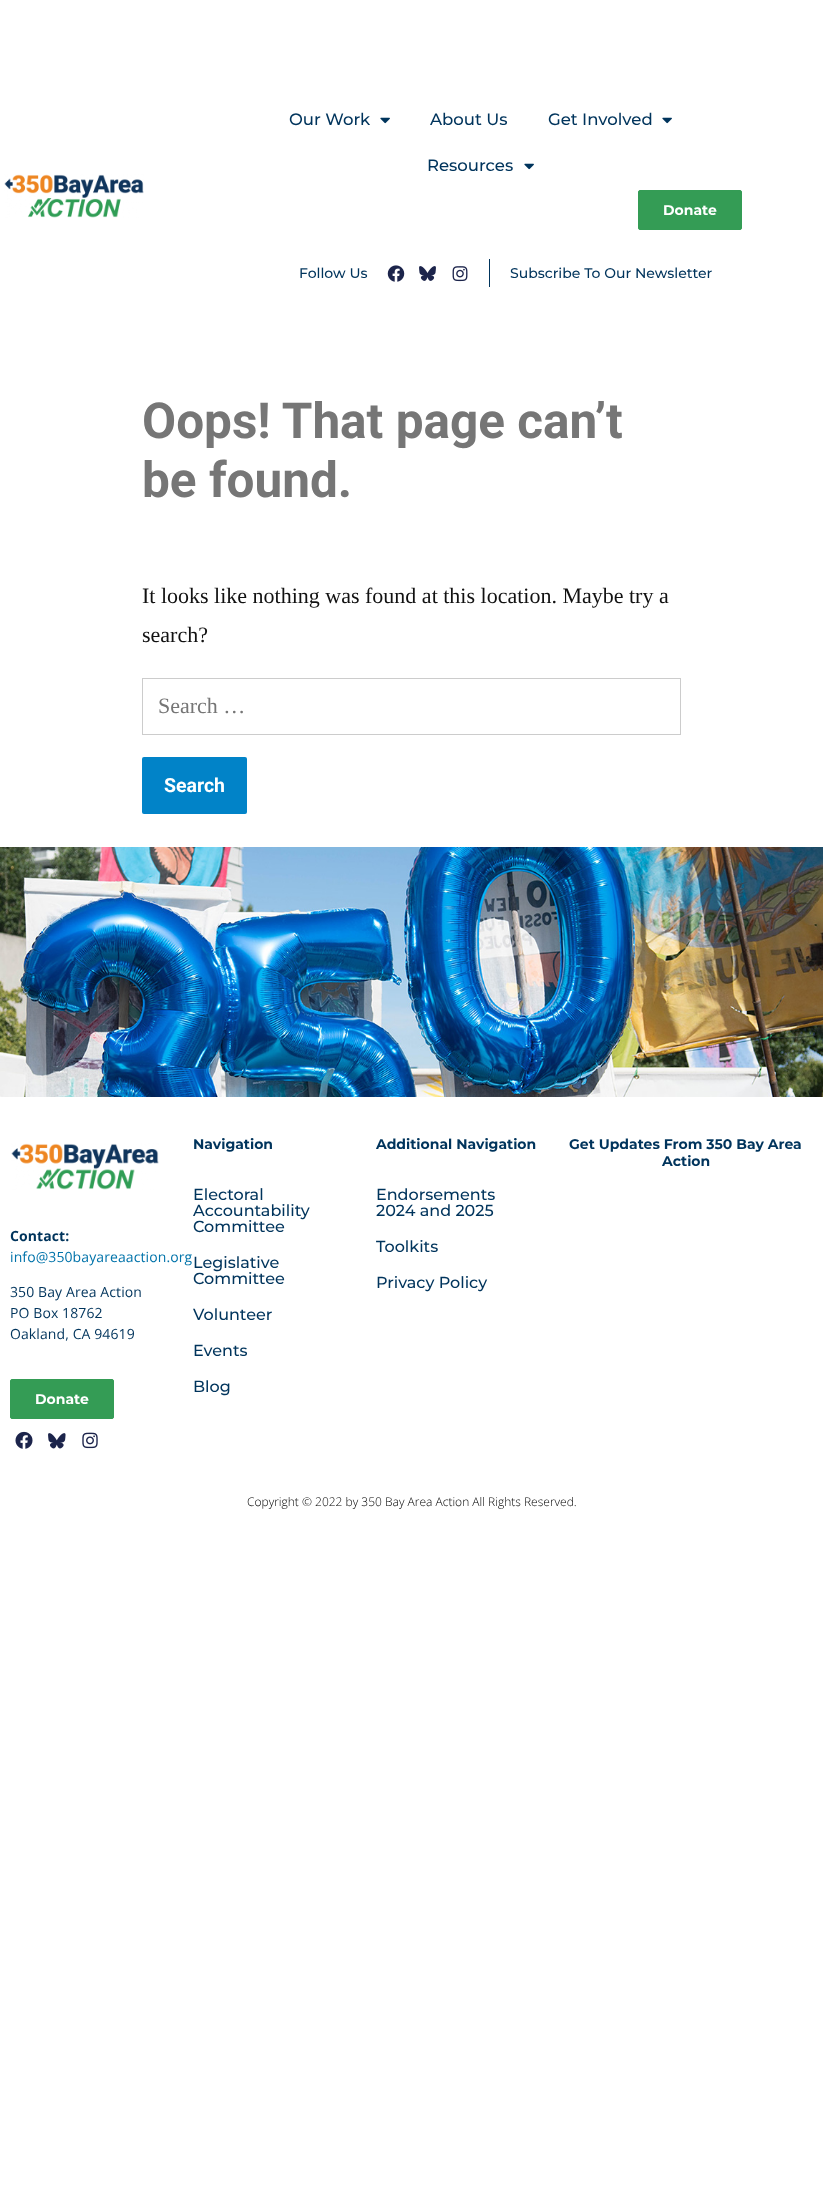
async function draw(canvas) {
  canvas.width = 823;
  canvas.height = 2208;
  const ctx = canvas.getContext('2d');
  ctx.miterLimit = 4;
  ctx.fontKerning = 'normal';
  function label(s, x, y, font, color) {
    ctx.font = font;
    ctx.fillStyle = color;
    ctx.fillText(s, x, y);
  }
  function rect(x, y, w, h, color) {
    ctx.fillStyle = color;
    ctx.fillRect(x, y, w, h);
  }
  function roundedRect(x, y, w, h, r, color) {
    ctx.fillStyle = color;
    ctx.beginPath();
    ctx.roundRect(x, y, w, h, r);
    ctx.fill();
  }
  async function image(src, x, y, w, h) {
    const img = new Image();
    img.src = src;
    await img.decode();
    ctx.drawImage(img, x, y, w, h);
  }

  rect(0, 0, 823, 2208, '#fff');
  await image('assets/img1.png', 4, 174, 140, 44);
  label('Our Work', 289, 125, '500 16.5px Montserrat', '#00345c');
  await image('assets/img2.png', 380, 117, 10, 7);
  label('About Us', 430, 125, '500 16.5px Montserrat', '#00345c');
  label('Get Involved', 548, 125, '500 16.5px Montserrat', '#00345c');
  await image('assets/img2.png', 662, 117, 10, 7);
  label('Resources', 427, 171, '500 16.5px Montserrat', '#00345c');
  await image('assets/img2.png', 524, 163, 10, 7);
  ctx.fillStyle = '#349c55';
  ctx.beginPath();
  ctx.roundRect(638.5, 190.5, 103, 39, 1.5);
  ctx.fill();
  ctx.strokeStyle = '#349c55';
  ctx.stroke();
  label('Donate', 663, 215, 'bold 14px Montserrat', '#fff');
  label('Follow Us', 299, 278, '500 14px Montserrat', '#00345c');
  rect(489, 259, 1, 28, '#00345c');
  await image('assets/img3.png', 387, 265, 18, 17);
  await image('assets/img4.png', 419, 266, 17, 15);
  await image('assets/img5.png', 452, 266, 16, 16);
  label('Subscribe To Our Newsletter', 510, 278, '500 14px Montserrat', '#00345c');
  label('Oops! That page can’t', 142, 438, 'bold 49.5px Roboto', '#767676');
  label('be found.', 142, 497, 'bold 49.5px Roboto', '#767676');
  label('It looks like nothing was found at this location. Maybe try a', 142, 603, '22px Liberation Serif', '#111');
  label('search?', 142, 642, '22px Liberation Serif', '#111');
  ctx.strokeStyle = '#ccc';
  ctx.strokeRect(142.5, 678.5, 538, 56);
  label('Search …', 158, 713, '22px Liberation Serif', '#767676');
  roundedRect(142, 757, 105, 57, 2, '#0183c8');
  label('Search', 164, 792, 'bold 19.5px Roboto', '#fff');
  await image('assets/img6.png', 0, 847, 823, 250);
  await image('assets/img7.png', 11, 1143, 148, 47);
  ctx.letterSpacing = '0.1px';
  label('Contact:', 10, 1241, 'bold 14px Open Sans', '#00345c');
  label('info@350bayareaaction.org', 10, 1262, '14px Open Sans', '#0073aa');
  label('350 Bay Area Action', 10, 1297, '14px Open Sans', '#00345c');
  label('PO Box 18762', 10, 1318, '14px Open Sans', '#00345c');
  label('Oakland, CA 94619', 10, 1339, '14px Open Sans', '#00345c');
  ctx.fillStyle = '#349c55';
  ctx.beginPath();
  ctx.roundRect(10.5, 1379.5, 103, 39, 1.5);
  ctx.fill();
  ctx.strokeStyle = '#349c55';
  ctx.stroke();
  ctx.letterSpacing = '0px';
  label('Donate', 35, 1404, 'bold 14px Montserrat', '#fff');
  await image('assets/img8.png', 15, 1431, 18, 18);
  await image('assets/img9.png', 48, 1433, 18, 16);
  await image('assets/img10.png', 82, 1432, 16, 17);
  label('Navigation', 193, 1149, 'bold 14px Montserrat', '#00345c');
  label('Electoral', 193, 1200, '500 16px Montserrat', '#00345c');
  label('Accountability', 193, 1216, '500 16px Montserrat', '#00345c');
  label('Committee', 193, 1232, '500 16px Montserrat', '#00345c');
  label('Legislative', 193, 1268, '500 16px Montserrat', '#00345c');
  label('Committee', 193, 1284, '500 16px Montserrat', '#00345c');
  label('Volunteer', 193, 1320, '500 16px Montserrat', '#00345c');
  label('Events', 193, 1356, '500 16px Montserrat', '#00345c');
  label('Blog', 193, 1392, '500 16px Montserrat', '#00345c');
  label('Additional Navigation', 376, 1149, 'bold 14px Montserrat', '#00345c');
  label('Endorsements', 376, 1200, '500 16px Montserrat', '#00345c');
  label('2024 and 2025', 376, 1216, '500 16px Montserrat', '#00345c');
  label('Toolkits', 376, 1252, '500 16px Montserrat', '#00345c');
  label('Privacy Policy', 376, 1288, '500 16px Montserrat', '#00345c');
  label('Get Updates From 350 Bay Area', 569, 1149, 'bold 14px Montserrat', '#00345c');
  label('Action', 662, 1166, 'bold 14px Montserrat', '#00345c');
  label('Copyright © 2022 by 350 Bay Area Action All Rights Reserved.', 247, 1506, '300 12px Open Sans', '#000');
}

draw(document.querySelector('canvas'));
